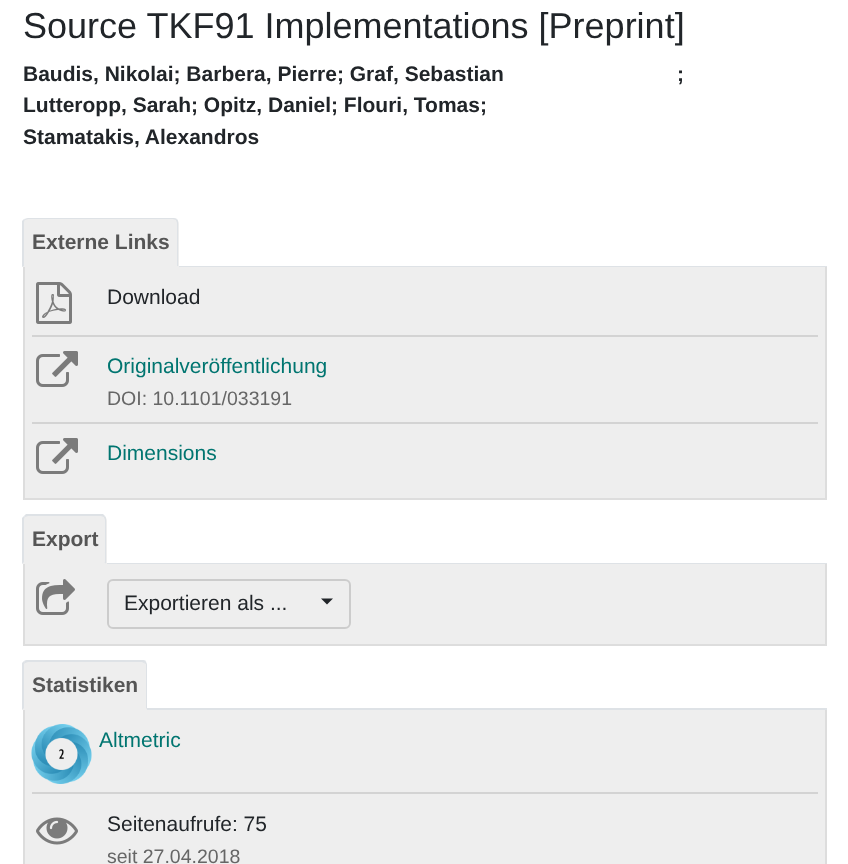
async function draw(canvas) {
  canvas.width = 848;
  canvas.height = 864;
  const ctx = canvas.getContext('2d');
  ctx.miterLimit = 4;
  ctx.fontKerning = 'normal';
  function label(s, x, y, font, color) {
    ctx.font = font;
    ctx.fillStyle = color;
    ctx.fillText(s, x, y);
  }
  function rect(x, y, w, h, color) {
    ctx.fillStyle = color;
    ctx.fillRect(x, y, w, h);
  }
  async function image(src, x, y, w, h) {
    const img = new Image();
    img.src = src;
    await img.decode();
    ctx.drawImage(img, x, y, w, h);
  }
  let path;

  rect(0, 0, 848, 864, '#fff');
  label('Source TKF91 Implementations [Preprint]', 23, 38, '36px Liberation Sans', '#212529');
  label('Baudis, Nikolai; Barbera, Pierre; Graf, Sebastian', 23, 81, 'bold 21px Liberation Sans', '#212529');
  label(';', 677, 81, 'bold 21px Liberation Sans', '#212529');
  label('Lutteropp, Sarah; Opitz, Daniel; Flouri, Tomas;', 23, 112, 'bold 21px Liberation Sans', '#212529');
  label('Stamatakis, Alexandros', 23, 144, 'bold 21px Liberation Sans', '#212529');
  rect(179, 266, 648, 1, '#dee2e6');
  ctx.fillStyle = '#eee';
  ctx.beginPath();
  ctx.roundRect(23, 218, 156, 49, [6, 6, 0, 0]);
  ctx.fill();
  ctx.fillStyle = '#dee2e6';
  path = new Path2D('M28 218L24 219L25 220C26 220 27 219 28 219H173C174 219 175 220 176 220L177 219C176 218 174 218 173 218Z');
  ctx.fill(path);
  path = new Path2D('M178 266V223C178 222 178 220 177 219L176 220C176 221 177 222 177 223V266Z');
  ctx.fill(path);
  ctx.fillStyle = '#eee';
  path = new Path2D('M22 267H178V266H177H24Z');
  ctx.fill(path);
  ctx.fillStyle = '#dee2e6';
  path = new Path2D('M22 267L24 266V223C24 222 24 221 25 220L24 219L22 221Z');
  ctx.fill(path);
  label('Externe Links', 32, 249, 'bold 21px Liberation Sans', '#555');
  rect(25, 267, 800, 231, '#eee');
  rect(825, 267, 2, 233, '#ddd');
  rect(23, 498, 804, 2, '#ddd');
  rect(23, 267, 2, 233, '#ddd');
  rect(32, 335, 786, 2, '#d3d3d3');
  await image('assets/img1.png', 36, 282, 36, 42);
  label('Download', 107, 304, '21px Liberation Sans', '#212529');
  rect(32, 422, 786, 2, '#d3d3d3');
  await image('assets/img2.png', 36, 351, 42, 36);
  label('Originalveröffentlichung', 107, 373, '21px Liberation Sans', '#007570');
  label('DOI: 10.1101/033191', 107, 405, '19.5px Liberation Sans', '#666');
  await image('assets/img2.png', 36, 438, 42, 36);
  label('Dimensions', 107, 460, '21px Liberation Sans', '#007570');
  rect(107, 563, 720, 1, '#dee2e6');
  ctx.fillStyle = '#eee';
  ctx.beginPath();
  ctx.roundRect(23, 515, 84, 49, [6, 6, 0, 0]);
  ctx.fill();
  ctx.fillStyle = '#dee2e6';
  path = new Path2D('M28 516L25 517L24 516L26 514H103L105 516L104 517L101 516Z');
  ctx.fill(path);
  path = new Path2D('M105 516C106 517 106 519 106 520V564L104 562H105V520C105 519 104 518 104 517Z');
  ctx.fill(path);
  ctx.fillStyle = '#eee';
  path = new Path2D('M22 564H106L104 562H24Z');
  ctx.fill(path);
  ctx.fillStyle = '#dee2e6';
  path = new Path2D('M22 564V518L24 516L25 517C24 518 24 519 24 520V562Z');
  ctx.fill(path);
  label('Export', 32, 546, 'bold 21px Liberation Sans', '#555');
  rect(25, 564, 800, 80, '#eee');
  rect(825, 564, 2, 81, '#ddd');
  rect(23, 644, 804, 2, '#ddd');
  rect(23, 564, 2, 81, '#ddd');
  await image('assets/img3.png', 36, 579, 39, 36);
  ctx.beginPath();
  ctx.roundRect(108, 580, 242, 48, 5);
  ctx.strokeStyle = '#ccc';
  ctx.lineWidth = 2;
  ctx.stroke();
  label('Exportieren als ...', 124, 610, '21px Liberation Sans', '#212529');
  path = new Path2D('M321 598.5H333L327 604.5Z');
  ctx.fill(path);
  rect(147, 708, 680, 2, '#dee2e6');
  ctx.fillStyle = '#eee';
  ctx.beginPath();
  ctx.roundRect(23, 660, 124, 50, [6, 6, 0, 0]);
  ctx.fill();
  ctx.fillStyle = '#dee2e6';
  path = new Path2D('M28 660C26 660 25 660 24 661L25 663L28 662H142L144 663L146 661C145 660 144 660 142 660Z');
  ctx.fill(path);
  path = new Path2D('M147 710V665C147 664 146 662 146 661L144 663L146 664V708Z');
  ctx.fill(path);
  ctx.fillStyle = '#eee';
  path = new Path2D('M147 710L146 708H24L22 710Z');
  ctx.fill(path);
  ctx.fillStyle = '#dee2e6';
  path = new Path2D('M22 710V663L24 661L25 663L24 664V708Z');
  ctx.fill(path);
  label('Statistiken', 32, 692, 'bold 21px Liberation Sans', '#555');
  rect(25, 710, 800, 154, '#eee');
  rect(825, 710, 2, 154, '#ddd');
  rect(23, 710, 2, 154, '#ddd');
  rect(32, 792, 786, 2, '#d3d3d3');
  await image('assets/img4.png', 31, 724, 61, 60);
  label('Altmetric', 99, 747, '21px Liberation Sans', '#007570');
  await image('assets/img5.png', 36, 817, 42, 28);
  label('Seitenaufrufe: 75', 107, 831, '21px Liberation Sans', '#212529');
  label('seit 27.04.2018', 107, 863, '19.5px Liberation Sans', '#666');
}

draw(document.querySelector('canvas'));
